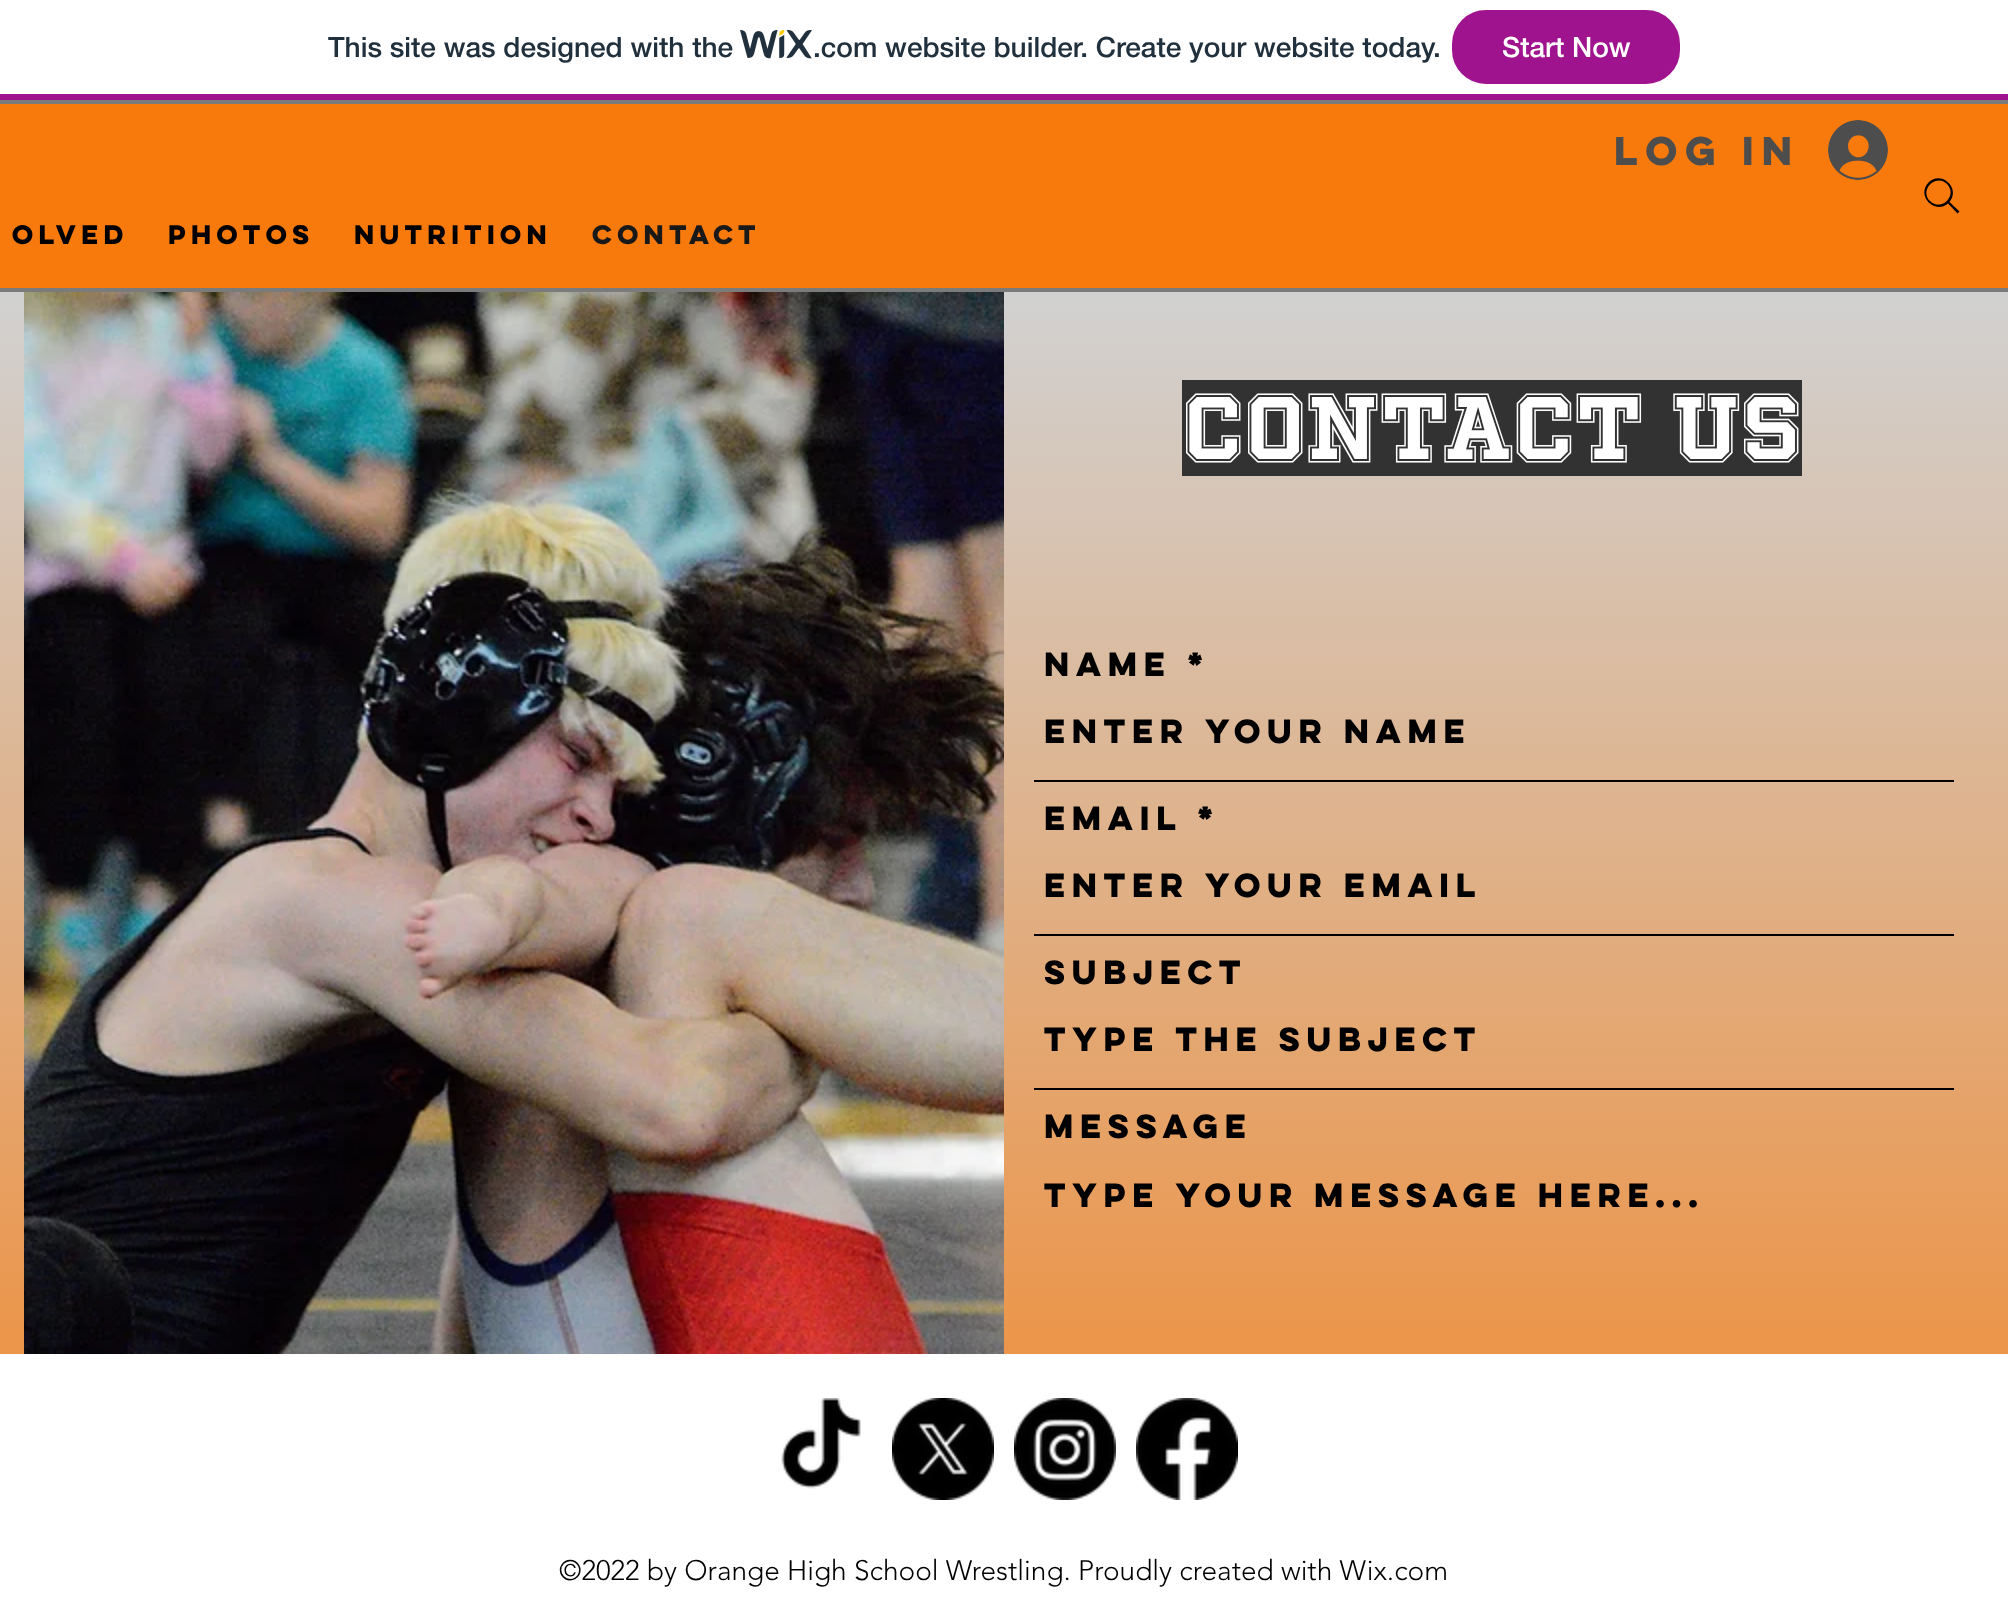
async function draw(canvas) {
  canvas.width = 2008;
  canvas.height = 1598;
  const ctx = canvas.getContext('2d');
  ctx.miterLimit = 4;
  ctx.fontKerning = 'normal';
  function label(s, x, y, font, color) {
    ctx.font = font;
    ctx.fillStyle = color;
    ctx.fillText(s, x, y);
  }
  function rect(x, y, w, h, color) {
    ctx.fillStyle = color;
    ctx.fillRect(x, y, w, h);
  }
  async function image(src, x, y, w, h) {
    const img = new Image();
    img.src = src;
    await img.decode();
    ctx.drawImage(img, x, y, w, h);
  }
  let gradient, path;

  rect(0, 0, 2008, 1598, '#fff');
  rect(0, 94, 2008, 6, '#a0138e');
  label('This site was designed with the', 328, 57, '500 28px "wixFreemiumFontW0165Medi"', '#20303c');
  await image('assets/img1.png', 740, 30, 72, 29);
  label('.com website builder. Create your website today.', 813, 57, '500 28px "wixFreemiumFontW0165Medi"', '#20303c');
  ctx.fillStyle = '#a0138e';
  ctx.beginPath();
  ctx.roundRect(1453, 11, 226, 72, 33);
  ctx.fill();
  ctx.strokeStyle = '#a0138e';
  ctx.lineWidth = 2;
  ctx.stroke();
  label('Start Now', 1502, 57, '500 28px "wixFreemiumFontW0165Medi"', '#fff');
  rect(0, 100, 2008, 4, '#7b7b7b');
  rect(0, 288, 2008, 4, '#7b7b7b');
  rect(0, 104, 2008, 184, '#f87a0c');
  label('Log In', 1614, 165, 'bold 36px "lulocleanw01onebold"', '#4d4d4d');
  await image('assets/img2.png', 1828, 120, 60, 60);
  ctx.fillStyle = '#000';
  path = new Path2D('M1930 201C1919 190 1936 173 1947 184C1958 195.5 1941.5 212 1930 201ZM1959.5 211.5L1949.5 202C1961 188.5 1941.5 170 1928.5 182.5C1916 195.5 1934.5 215 1948 203.5L1957.5 213.5Z');
  ctx.fill(path, 'evenodd');
  label('olved', 12, 244, 'bold 24px "lulocleanw01onebold"', '#000');
  label('Photos', 168, 244, 'bold 24px "lulocleanw01onebold"', '#000');
  label('Nutrition', 354, 244, 'bold 24px "lulocleanw01onebold"', '#000');
  label('Contact', 592, 244, 'bold 24px "lulocleanw01onebold"', '#191919');
  gradient = ctx.createLinearGradient(1004, 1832, 1004, 292);
  gradient.addColorStop(0, '#f87a0c');
  gradient.addColorStop(1, '#d1d1d1');
  ctx.fillStyle = gradient;
  ctx.fillRect(0, 292, 2008, 1062);
  await image('assets/img3.png', 24, 292, 980, 1062);
  rect(1182, 380, 620, 96, '#323232');
  label('CONTACT US', 1182, 460, '80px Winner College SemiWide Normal', '#fff');
  label('Name *', 1044, 676, 'bold 30px "lulocleanw01onebold"', '#000');
  rect(1034, 780, 920, 2, '#000');
  label('Enter your name', 1044, 743, 'bold 30px "lulocleanw01onebold"', '#000');
  label('Email', 1044, 830, 'bold 30px "lulocleanw01onebold"', '#000');
  label('*', 1197, 830, 'bold 30px "lulocleanw01onebold"', '#000');
  rect(1034, 934, 920, 2, '#000');
  label('Enter your email', 1044, 897, 'bold 30px "lulocleanw01onebold"', '#000');
  label('Subject', 1044, 984, 'bold 30px "lulocleanw01onebold"', '#000');
  rect(1034, 1088, 920, 2, '#000');
  label('Type the subject', 1044, 1051, 'bold 30px "lulocleanw01onebold"', '#000');
  label('Message', 1044, 1138, 'bold 30px "lulocleanw01onebold"', '#000');
  label('Type your message here...', 1044, 1207, 'bold 30px "lulocleanw01onebold"', '#000');
  await image('assets/img4.png', 781, 1398, 80, 91);
  await image('assets/img5.png', 892, 1398, 102, 102);
  await image('assets/img6.png', 1014, 1398, 102, 102);
  await image('assets/img7.png', 1136, 1398, 102, 102);
  label('©2022 by Orange High School Wrestling. Proudly created with Wix.com', 559, 1580, '300 28px "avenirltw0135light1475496"', '#000');
}

draw(document.querySelector('canvas'));
